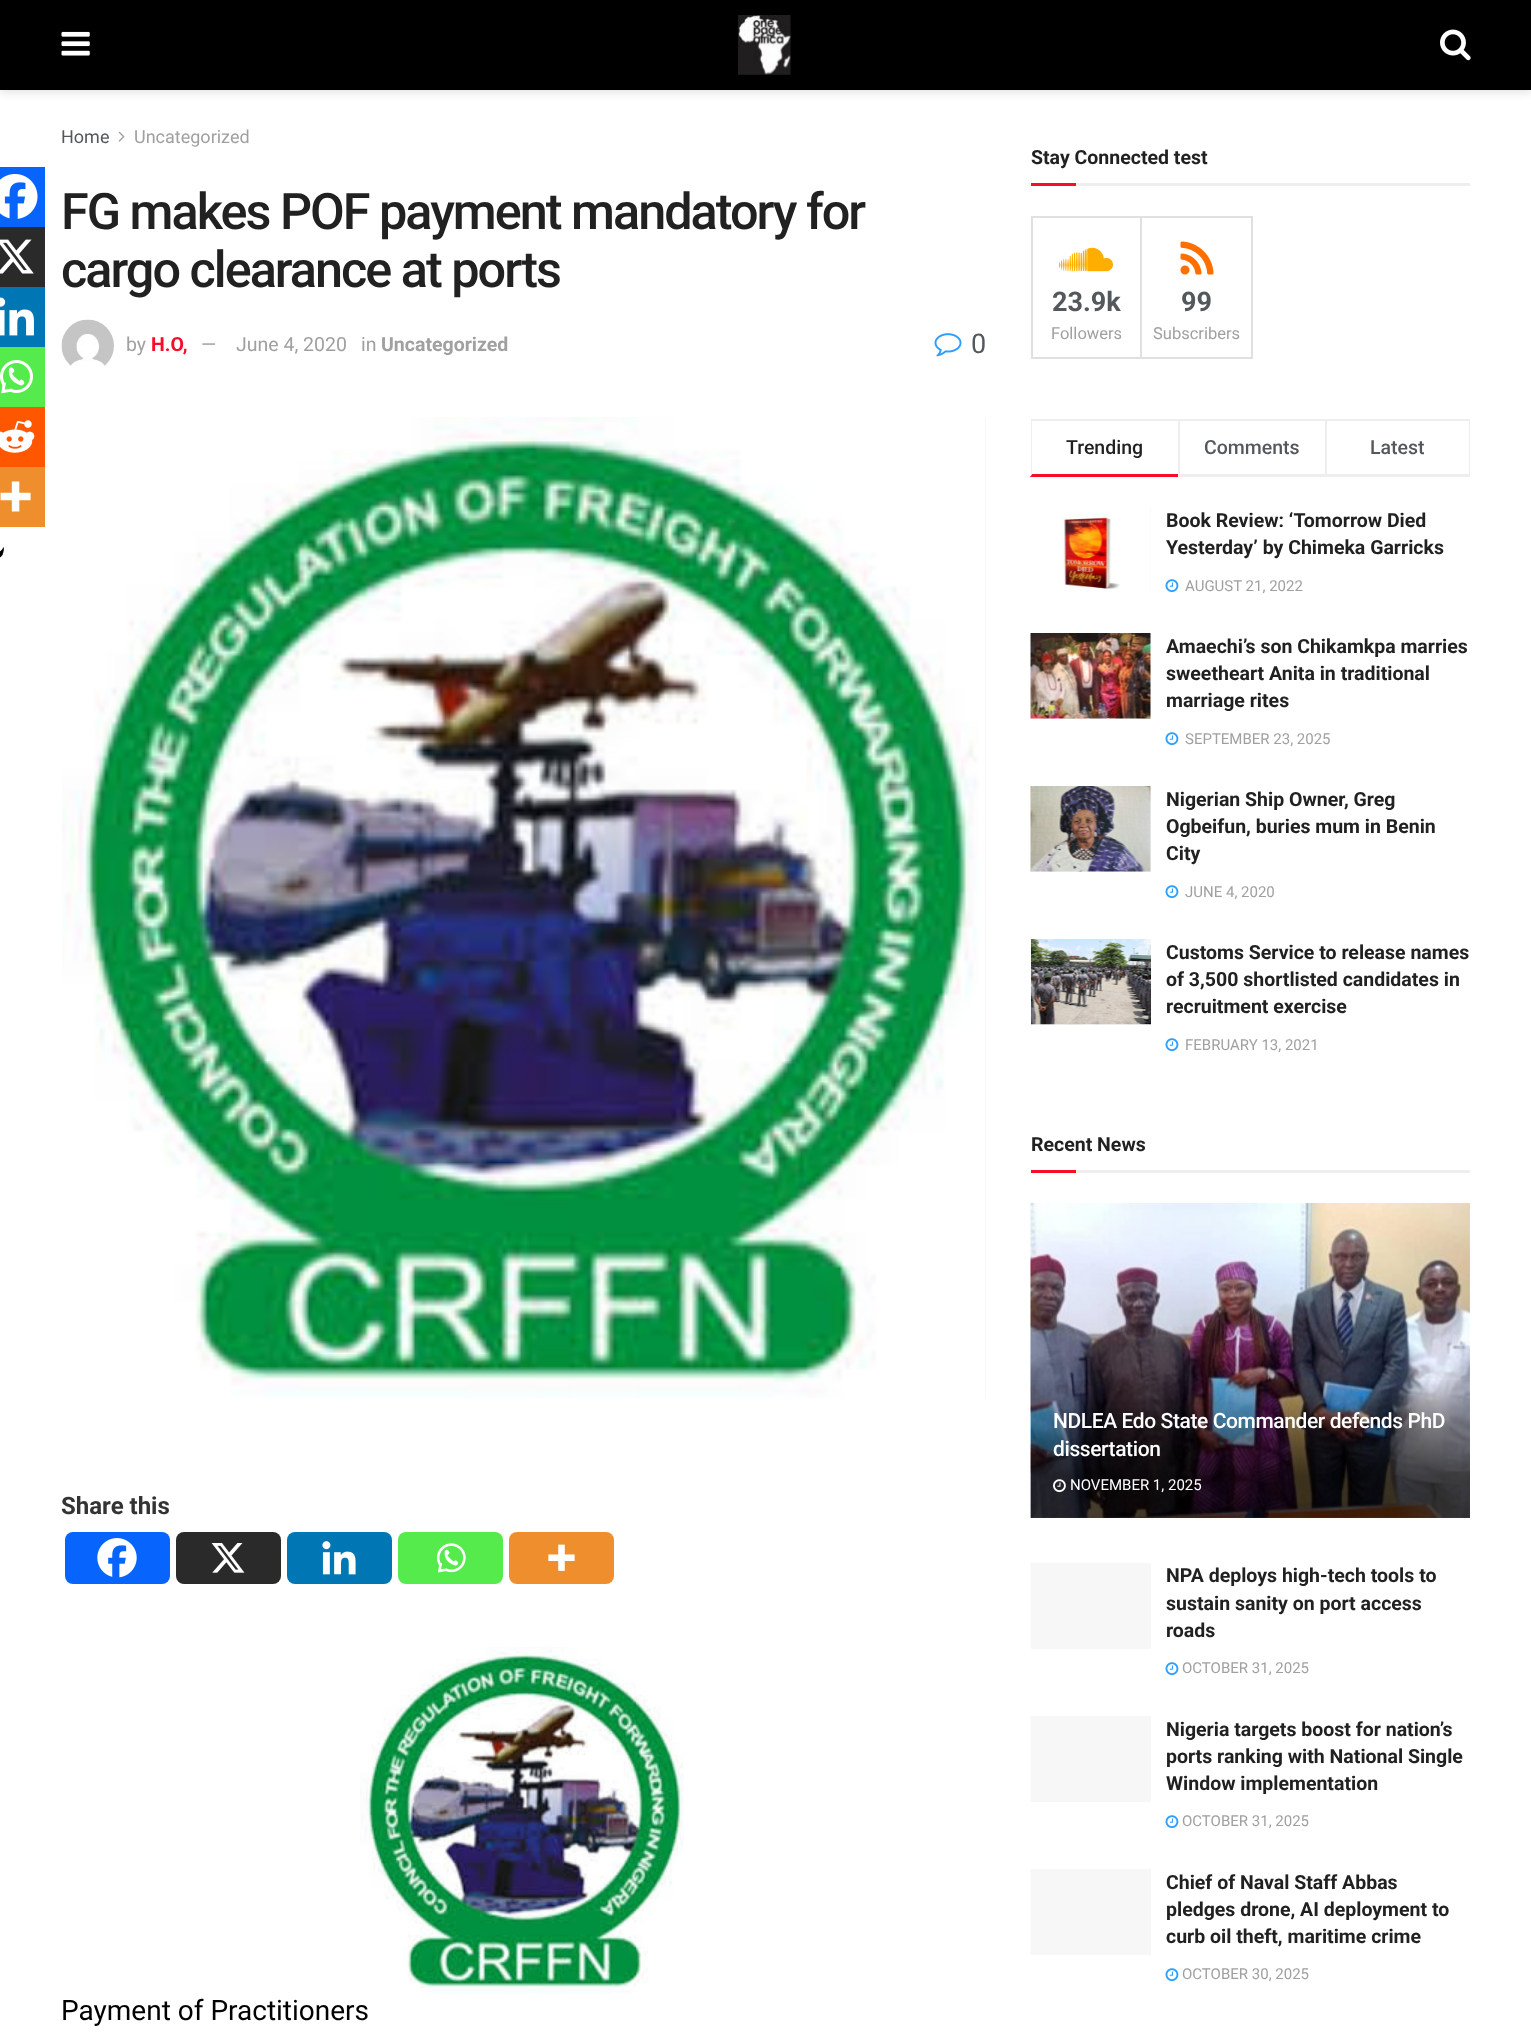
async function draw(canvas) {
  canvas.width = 1531;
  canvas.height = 2037;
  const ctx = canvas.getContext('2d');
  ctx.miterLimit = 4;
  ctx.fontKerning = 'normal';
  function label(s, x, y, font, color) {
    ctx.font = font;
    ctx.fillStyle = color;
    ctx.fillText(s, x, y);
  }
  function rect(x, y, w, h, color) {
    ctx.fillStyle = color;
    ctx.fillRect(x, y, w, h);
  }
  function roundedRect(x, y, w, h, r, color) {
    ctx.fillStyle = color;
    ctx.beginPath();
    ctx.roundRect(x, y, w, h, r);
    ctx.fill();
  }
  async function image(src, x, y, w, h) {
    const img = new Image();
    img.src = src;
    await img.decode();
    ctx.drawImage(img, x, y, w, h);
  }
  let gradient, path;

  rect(0, 0, 1531, 2037, '#fff');
  ctx.fillStyle = '#0000001a';
  ctx.filter = 'blur(4.5px)';
  ctx.beginPath();
  ctx.rect(0, 3, 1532, 90);
  ctx.fill();
  ctx.filter = 'none';
  rect(0, 0, 1531, 90, '#000');
  await image('assets/img1.png', 61, 31, 29, 25);
  await image('assets/img2.png', 738, 15, 53, 60);
  await image('assets/img3.png', 1440, 29, 31, 32);
  label('Home', 61, 143, '18px Roboto', '#53585c');
  await image('assets/img4.png', 118, 131, 7, 11);
  label('Uncategorized', 134, 143, '18px Roboto', '#a0a0a0');
  ctx.letterSpacing = '-2px';
  label('FG makes POF payment mandatory for', 61, 229, '500 50.4px Roboto', '#212121');
  label('cargo clearance at ports', 61, 287, '500 50.4px Roboto', '#212121');
  await image('assets/img5.png', 61, 319, 53, 47);
  ctx.letterSpacing = '0px';
  label('by', 126, 351, '19.5px Roboto', '#a0a0a0');
  label('H.O,', 151, 351, 'bold 19.5px Roboto', '#f70d28');
  label('—', 201, 351, '19.5px Roboto', '#a0a0a0');
  label('June 4, 2020', 236, 351, '19.5px Roboto', '#a0a0a0');
  label('in', 361, 351, '19.5px Roboto', '#a0a0a0');
  label('Uncategorized', 381, 351, 'bold 19.5px Roboto', '#a0a0a0');
  await image('assets/img6.png', 934, 333, 28, 24);
  label('0', 971, 353, '27px Roboto', '#53585c');
  rect(985, 417, 1, 981, '#f7f7f7');
  await image('assets/img7.png', 62, 417, 923, 981);
  rect(0, 167, 45, 60, '#0765fe');
  await image('assets/img8.png', 0, 174, 38, 45);
  rect(0, 227, 45, 60, '#2a2a2a');
  await image('assets/img9.png', 0, 239, 34, 35);
  rect(0, 287, 45, 60, '#0077b5');
  await image('assets/img10.png', 0, 297, 34, 39);
  rect(0, 347, 45, 60, '#55eb4c');
  await image('assets/img11.png', 0, 360, 33, 34);
  rect(0, 407, 45, 60, '#ff5700');
  await image('assets/img12.png', 0, 420, 35, 33);
  rect(0, 467, 45, 60, '#ee8e2d');
  await image('assets/img13.png', 0, 481, 31, 31);
  await image('assets/img14.png', 0, 547, 4, 11);
  label('Share this', 61, 1514, 'bold 24px Roboto', '#333');
  roundedRect(65, 1532, 105, 52, 8, '#0765fe');
  await image('assets/img15.png', 97, 1538, 40, 40);
  roundedRect(176, 1532, 105, 52, 8, '#2a2a2a');
  await image('assets/img16.png', 211, 1543, 34, 30);
  roundedRect(287, 1532, 105, 52, 8, '#0077b5');
  await image('assets/img17.png', 322, 1541, 34, 34);
  roundedRect(398, 1532, 105, 52, 8, '#55eb4c');
  await image('assets/img18.png', 436, 1543, 30, 30);
  roundedRect(509, 1532, 105, 52, 8, '#ee8e2d');
  await image('assets/img19.png', 548, 1544, 27, 27);
  await image('assets/img20.png', 360, 1647, 324, 347);
  label('Payment of Practitioners', 61, 2020, '28px Roboto', '#000');
  rect(1076, 183, 394, 3, '#eee');
  label('Stay Connected test', 1031, 164, 'bold 19.5px Roboto', '#212121');
  rect(1031, 183, 45, 3, '#f70d28');
  ctx.strokeStyle = '#e0e0e0';
  ctx.lineWidth = 2;
  ctx.strokeRect(1032, 217, 109, 141);
  await image('assets/img21.png', 1059, 247, 54, 25);
  label('23.9k', 1052, 311, 'bold 27px Roboto', '#53585c');
  label('Followers', 1051, 339, '16.5px Roboto', '#a0a0a0');
  ctx.strokeRect(1141, 217, 111, 141);
  await image('assets/img22.png', 1180, 241, 34, 34);
  label('99', 1181, 311, 'bold 27px Roboto', '#53585c');
  label('Subscribers', 1153, 339, '16.5px Roboto', '#a0a0a0');
  rect(1031, 419, 439, 2, '#eee');
  ctx.fillStyle = '#f70d28';
  path = new Path2D('M1178 477H1030L1032 474H1178Z');
  ctx.fill(path);
  ctx.save();
  ctx.beginPath();
  ctx.rect(1031, 419, 439, 58);
  ctx.clip();
  ctx.fillStyle = '#eee';
  path = new Path2D('M1030 477V418L1032 420V474Z');
  ctx.fill(path);
  ctx.restore();
  label('Trending', 1066, 454, '500 19.5px Roboto', '#212121');
  rect(1178, 474, 147, 3, '#eee');
  rect(1178, 419, 2, 58, '#eee');
  label('Comments', 1204, 454, '500 19.5px Roboto', '#53585c');
  rect(1469, 419, 1, 58, '#eee');
  rect(1325, 474, 145, 3, '#eee');
  rect(1325, 419, 2, 58, '#eee');
  label('Latest', 1370, 454, '500 19.5px Roboto', '#53585c');
  rect(1150, 507, 1, 87, '#f7f7f7');
  await image('assets/img23.png', 1031, 507, 120, 87);
  label('Book Review: ‘Tomorrow Died', 1166, 527, 'bold 19.5px Roboto', '#212121');
  label('Yesterday’ by Chimeka Garricks', 1166, 554, 'bold 19.5px Roboto', '#212121');
  await image('assets/img24.png', 1165, 579, 14, 14);
  label('AUGUST 21, 2022', 1185, 591, '15px Roboto', '#a0a0a0');
  rect(1031, 633, 120, 86, '#f7f7f7');
  await image('assets/img25.png', 1030, 633, 121, 86);
  label('Amaechi’s son Chikamkpa marries', 1166, 653, 'bold 19.5px Roboto', '#212121');
  label('sweetheart Anita in traditional', 1166, 680, 'bold 19.5px Roboto', '#212121');
  label('marriage rites', 1166, 707, 'bold 19.5px Roboto', '#212121');
  await image('assets/img24.png', 1165, 732, 14, 14);
  label('SEPTEMBER 23, 2025', 1185, 744, '15px Roboto', '#a0a0a0');
  rect(1031, 786, 120, 86, '#f7f7f7');
  await image('assets/img26.png', 1030, 786, 121, 86);
  label('Nigerian Ship Owner, Greg', 1166, 806, 'bold 19.5px Roboto', '#212121');
  label('Ogbeifun, buries mum in Benin', 1166, 833, 'bold 19.5px Roboto', '#212121');
  label('City', 1166, 860, 'bold 19.5px Roboto', '#212121');
  await image('assets/img24.png', 1165, 885, 14, 14);
  label('JUNE 4, 2020', 1185, 897, '15px Roboto', '#a0a0a0');
  rect(1031, 1024, 120, 1, '#f7f7f7');
  await image('assets/img27.png', 1030, 939, 55, 86);
  await image('assets/img28.png', 1031, 939, 120, 86);
  label('Customs Service to release names', 1166, 959, 'bold 19.5px Roboto', '#212121');
  label('of 3,500 shortlisted candidates in', 1166, 986, 'bold 19.5px Roboto', '#212121');
  label('recruitment exercise', 1166, 1013, 'bold 19.5px Roboto', '#212121');
  await image('assets/img24.png', 1165, 1038, 14, 14);
  label('FEBRUARY 13, 2021', 1185, 1050, '15px Roboto', '#a0a0a0');
  rect(1076, 1170, 394, 3, '#eee');
  label('Recent News', 1031, 1151, 'bold 19.5px Roboto', '#212121');
  rect(1031, 1170, 45, 3, '#f70d28');
  rect(1030, 1203, 1, 315, '#fbfbfb');
  await image('assets/img29.png', 1030, 1203, 440, 315);
  gradient = ctx.createLinearGradient(1250, 1377, 1250, 1518);
  gradient.addColorStop(0, '#00000000');
  gradient.addColorStop(0.7, '#000000a6');
  ctx.fillStyle = gradient;
  ctx.fillRect(1031, 1380, 439, 138);
  ctx.letterSpacing = '-0.4px';
  label('NDLEA Edo State Commander defends PhD', 1053, 1428, '500 21px Roboto', '#fff');
  label('dissertation', 1053, 1456, '500 21px Roboto', '#fff');
  await image('assets/img30.png', 1053, 1479, 13, 14);
  ctx.letterSpacing = '0px';
  label('NOVEMBER 1, 2025', 1070, 1490, '15px Roboto', '#fff');
  rect(1031, 1563, 120, 86, '#f7f7f7');
  rect(1030, 1563, 1, 85, '#fbfbfb');
  label('NPA deploys high-tech tools to', 1166, 1582, 'bold 19.5px Roboto', '#212121');
  label('sustain sanity on port access', 1166, 1610, 'bold 19.5px Roboto', '#212121');
  label('roads', 1166, 1637, 'bold 19.5px Roboto', '#212121');
  await image('assets/img24.png', 1165, 1662, 14, 14);
  label('OCTOBER 31, 2025', 1182, 1673, '15px Roboto', '#a0a0a0');
  rect(1031, 1716, 120, 86, '#f7f7f7');
  rect(1030, 1716, 1, 85, '#fbfbfb');
  label('Nigeria targets boost for nation’s', 1166, 1736, 'bold 19.5px Roboto', '#212121');
  label('ports ranking with National Single', 1166, 1763, 'bold 19.5px Roboto', '#212121');
  label('Window implementation', 1166, 1790, 'bold 19.5px Roboto', '#212121');
  await image('assets/img24.png', 1165, 1815, 14, 14);
  label('OCTOBER 31, 2025', 1182, 1826, '15px Roboto', '#a0a0a0');
  rect(1031, 1869, 120, 86, '#f7f7f7');
  rect(1030, 1869, 1, 85, '#fbfbfb');
  label('Chief of Naval Staff Abbas', 1166, 1889, 'bold 19.5px Roboto', '#212121');
  label('pledges drone, AI deployment to', 1166, 1916, 'bold 19.5px Roboto', '#212121');
  label('curb oil theft, maritime crime', 1166, 1943, 'bold 19.5px Roboto', '#212121');
  await image('assets/img24.png', 1165, 1968, 14, 14);
  label('OCTOBER 30, 2025', 1182, 1979, '15px Roboto', '#a0a0a0');
}

draw(document.querySelector('canvas'));
